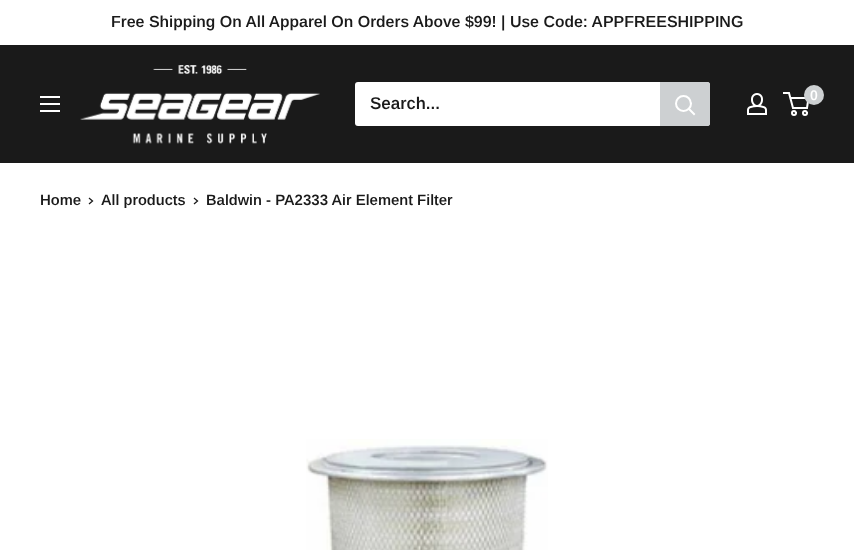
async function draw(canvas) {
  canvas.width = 854;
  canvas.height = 550;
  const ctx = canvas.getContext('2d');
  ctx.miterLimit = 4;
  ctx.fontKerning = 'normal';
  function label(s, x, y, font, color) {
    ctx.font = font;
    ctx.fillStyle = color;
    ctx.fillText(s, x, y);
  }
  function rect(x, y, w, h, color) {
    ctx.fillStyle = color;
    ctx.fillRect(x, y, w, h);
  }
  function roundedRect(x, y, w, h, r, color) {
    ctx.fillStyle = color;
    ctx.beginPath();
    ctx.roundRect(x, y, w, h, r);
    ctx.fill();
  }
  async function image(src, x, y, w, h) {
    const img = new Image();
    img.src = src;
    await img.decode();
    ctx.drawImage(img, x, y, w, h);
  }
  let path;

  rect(0, 0, 854, 550, '#fff');
  label('Free Shipping On All Apparel On Orders Above $99! | Use Code: APPFREESHIPPING', 111, 27, '600 16px Arimo', '#1a1a1a');
  rect(0, 45, 854, 118, '#1a1a1a');
  await image('assets/img1.png', 40, 96, 20, 16);
  await image('assets/img2.png', 80, 65, 240, 79);
  roundedRect(355, 82, 355, 44, 3, '#fff');
  label('Search...', 370, 109, '600 17px Arimo', '#1a1a1a');
  ctx.fillStyle = '#cdd0d2';
  ctx.beginPath();
  ctx.roundRect(660, 82, 50, 44, [0, 3, 3, 0]);
  ctx.fill();
  path = new Path2D('M694 114L689 109');
  ctx.strokeStyle = '#fff';
  ctx.lineWidth = 2;
  ctx.lineCap = 'square';
  ctx.stroke(path);
  ctx.beginPath();
  ctx.arc(683.5, 103.5, 7.5, 0, 2 * Math.PI);
  ctx.stroke();
  await image('assets/img3.png', 747, 93, 20, 22);
  ctx.beginPath();
  ctx.arc(794, 113, 2, 0, 2 * Math.PI);
  ctx.stroke();
  ctx.beginPath();
  ctx.arc(805, 113, 2, 0, 2 * Math.PI);
  ctx.stroke();
  path = new Path2D('M790.5 98H808.5L807 108H793L789 93H783');
  ctx.lineCap = 'butt';
  ctx.stroke(path);
  ctx.beginPath();
  ctx.arc(814, 95, 10, 0, 2 * Math.PI);
  ctx.fill();
  label('0', 810, 100, '600 14px Arimo', '#fff');
  label('Home', 40, 205, '600 15px Arimo', '#1a1a1a');
  path = new Path2D('M89.5 198.5L92.5 201L89.5 203.5');
  ctx.strokeStyle = '#1a1a1a';
  ctx.lineWidth = 1.3;
  ctx.lineCap = 'square';
  ctx.stroke(path);
  label('All products', 101, 205, '600 15px Arimo', '#1a1a1a');
  path = new Path2D('M194.5 198.5L197.5 201L194.5 203.5');
  ctx.stroke(path);
  label('Baldwin - PA2333 Air Element Filter', 206, 205, '600 15px Arimo', '#1a1a1a');
  await image('assets/img4.png', 306, 439, 242, 111);
}

draw(document.querySelector('canvas'));
